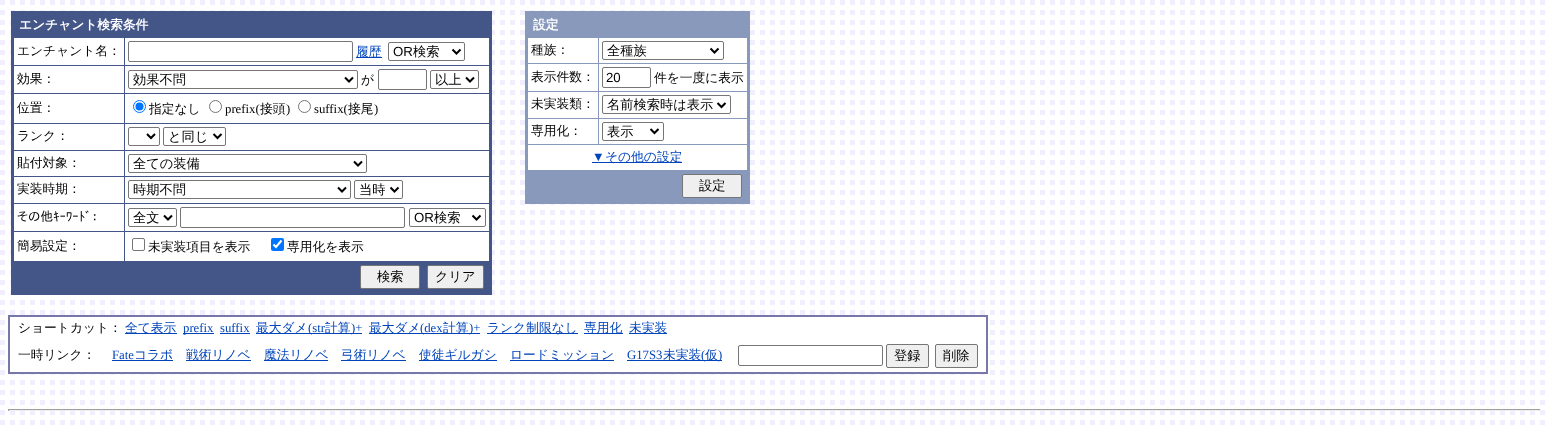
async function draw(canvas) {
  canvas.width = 1549;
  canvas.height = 427;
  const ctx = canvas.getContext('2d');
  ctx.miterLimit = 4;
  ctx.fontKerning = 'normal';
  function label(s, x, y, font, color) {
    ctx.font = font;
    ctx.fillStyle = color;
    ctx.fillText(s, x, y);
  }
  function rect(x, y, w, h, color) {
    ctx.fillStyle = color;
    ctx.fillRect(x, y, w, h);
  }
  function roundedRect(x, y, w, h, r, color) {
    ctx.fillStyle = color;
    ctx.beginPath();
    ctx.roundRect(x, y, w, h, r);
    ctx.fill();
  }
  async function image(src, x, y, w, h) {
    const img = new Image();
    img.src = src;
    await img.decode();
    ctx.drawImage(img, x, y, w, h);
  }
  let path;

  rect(0, 0, 1549, 427, '#fff');
  await image('assets/img1.png', 0, 0, 1545, 425);
  rect(11, 11, 481, 284, '#458');
  label('エンチャント検索条件', 19, 29, 'bold 12.75px WenQuanYi Zen Hei', '#fff');
  rect(14, 38, 110, 27, '#fff');
  label('エンチャント名：', 17, 55, '500 12.75px WenQuanYi Zen Hei', '#000');
  rect(125, 38, 364, 27, '#fff');
  ctx.beginPath();
  ctx.roundRect(128.5, 41.5, 224, 20, 1.5);
  ctx.strokeStyle = '#767676';
  ctx.stroke();
  rect(356, 57, 26, 1, '#04b');
  label('履歴', 356, 56, '500 12.75px WenQuanYi Zen Hei', '#04b');
  ctx.beginPath();
  ctx.roundRect(388.5, 42.5, 76, 18, 1.5);
  ctx.stroke();
  path = new Path2D('M452.5 49.5L456.5 53.5L460.5 49.5');
  ctx.strokeStyle = '#000';
  ctx.lineWidth = 2;
  ctx.stroke(path);
  label('OR', 393, 56, '13.25px Liberation Sans', '#000');
  label('検索', 413, 56, '500 13.25px WenQuanYi Zen Hei', '#000');
  rect(14, 66, 110, 27, '#fff');
  label('効果：', 17, 83, '500 12.75px WenQuanYi Zen Hei', '#000');
  rect(125, 66, 364, 27, '#fff');
  ctx.beginPath();
  ctx.roundRect(128.5, 70.5, 229, 18, 1.5);
  ctx.strokeStyle = '#767676';
  ctx.lineWidth = 1;
  ctx.stroke();
  path = new Path2D('M345 77.5L349 81.5L353 77.5');
  ctx.strokeStyle = '#000';
  ctx.lineWidth = 2;
  ctx.stroke(path);
  label('効果不問', 133, 84, '500 13.25px WenQuanYi Zen Hei', '#000');
  label('が', 361, 84, '500 12.75px WenQuanYi Zen Hei', '#000');
  ctx.beginPath();
  ctx.roundRect(378.5, 69.5, 48, 20, 1.5);
  ctx.strokeStyle = '#767676';
  ctx.lineWidth = 1;
  ctx.stroke();
  ctx.beginPath();
  ctx.roundRect(430.5, 70.5, 48, 18, 1.5);
  ctx.stroke();
  path = new Path2D('M466 77.5L470 81.5L474 77.5');
  ctx.strokeStyle = '#000';
  ctx.lineWidth = 2;
  ctx.stroke(path);
  label('以上', 435, 84, '500 13.25px WenQuanYi Zen Hei', '#000');
  rect(14, 94, 110, 29, '#fff');
  label('位置：', 17, 112, '500 12.75px WenQuanYi Zen Hei', '#000');
  rect(125, 94, 364, 29, '#fff');
  ctx.beginPath();
  ctx.arc(139.5, 106.5, 6, 0, 2 * Math.PI);
  ctx.strokeStyle = '#0075ff';
  ctx.lineWidth = 1;
  ctx.stroke();
  ctx.fillStyle = '#0075ff';
  ctx.beginPath();
  ctx.arc(139.5, 106.5, 4, 0, 2 * Math.PI);
  ctx.fill();
  label('指定なし', 149, 113, '500 12.75px WenQuanYi Zen Hei', '#000');
  ctx.beginPath();
  ctx.arc(215.5, 106.5, 6, 0, 2 * Math.PI);
  ctx.strokeStyle = '#767676';
  ctx.stroke();
  label('prefix(', 225, 113, '12.75px Liberation Serif', '#000');
  label('接頭', 260, 113, '500 12.75px WenQuanYi Zen Hei', '#000');
  label(')', 286, 113, '12.75px Liberation Serif', '#000');
  ctx.beginPath();
  ctx.arc(304.5, 106.5, 6, 0, 2 * Math.PI);
  ctx.stroke();
  label('suffix(', 314, 113, '12.75px Liberation Serif', '#000');
  label('接尾', 348, 113, '500 12.75px WenQuanYi Zen Hei', '#000');
  label(')', 374, 113, '12.75px Liberation Serif', '#000');
  rect(14, 124, 110, 26, '#fff');
  label('ランク：', 17, 140, '500 12.75px WenQuanYi Zen Hei', '#000');
  rect(125, 124, 364, 26, '#fff');
  ctx.beginPath();
  ctx.roundRect(128.5, 127.5, 31, 18, 1.5);
  ctx.stroke();
  path = new Path2D('M147 134L151 138L155 134');
  ctx.strokeStyle = '#000';
  ctx.lineWidth = 2;
  ctx.stroke(path);
  ctx.beginPath();
  ctx.roundRect(163.5, 127.5, 62, 18, 1.5);
  ctx.strokeStyle = '#767676';
  ctx.lineWidth = 1;
  ctx.stroke();
  path = new Path2D('M213.5 134L217.5 138L221.5 134');
  ctx.strokeStyle = '#000';
  ctx.lineWidth = 2;
  ctx.stroke(path);
  label('と同じ', 168, 141, '500 13.25px WenQuanYi Zen Hei', '#000');
  rect(14, 151, 110, 25, '#fff');
  label('貼付対象：', 17, 167, '500 12.75px WenQuanYi Zen Hei', '#000');
  rect(125, 151, 364, 25, '#fff');
  ctx.beginPath();
  ctx.roundRect(128.5, 154.5, 238, 18, 1.5);
  ctx.strokeStyle = '#767676';
  ctx.lineWidth = 1;
  ctx.stroke();
  path = new Path2D('M354 161.5L358 165.5L362 161.5');
  ctx.strokeStyle = '#000';
  ctx.lineWidth = 2;
  ctx.stroke(path);
  label('全ての装備', 133, 168, '500 13.25px WenQuanYi Zen Hei', '#000');
  rect(14, 177, 110, 26, '#fff');
  label('実装時期：', 17, 193, '500 12.75px WenQuanYi Zen Hei', '#000');
  rect(125, 177, 364, 26, '#fff');
  ctx.beginPath();
  ctx.roundRect(128.5, 180.5, 222, 18, 1.5);
  ctx.strokeStyle = '#767676';
  ctx.lineWidth = 1;
  ctx.stroke();
  path = new Path2D('M338 187.5L342 191.5L346 187.5');
  ctx.strokeStyle = '#000';
  ctx.lineWidth = 2;
  ctx.stroke(path);
  label('時期不問', 133, 194, '500 13.25px WenQuanYi Zen Hei', '#000');
  ctx.beginPath();
  ctx.roundRect(354.5, 180.5, 48, 18, 1.5);
  ctx.strokeStyle = '#767676';
  ctx.lineWidth = 1;
  ctx.stroke();
  path = new Path2D('M390.5 187.5L394.5 191.5L398.5 187.5');
  ctx.strokeStyle = '#000';
  ctx.lineWidth = 2;
  ctx.stroke(path);
  label('当時', 359, 194, '500 13.25px WenQuanYi Zen Hei', '#000');
  rect(14, 204, 110, 27, '#fff');
  label('その他ｷｰﾜｰﾄﾞ：', 17, 221, '12.75px IPAPGothic', '#000');
  rect(125, 204, 364, 27, '#fff');
  ctx.beginPath();
  ctx.roundRect(128.5, 208.5, 48, 18, 1.5);
  ctx.strokeStyle = '#767676';
  ctx.lineWidth = 1;
  ctx.stroke();
  path = new Path2D('M164 215.5L168 219.5L172 215.5');
  ctx.strokeStyle = '#000';
  ctx.lineWidth = 2;
  ctx.stroke(path);
  label('全文', 133, 222, '500 13.25px WenQuanYi Zen Hei', '#000');
  ctx.beginPath();
  ctx.roundRect(180.5, 207.5, 224, 20, 1.5);
  ctx.strokeStyle = '#767676';
  ctx.lineWidth = 1;
  ctx.stroke();
  ctx.beginPath();
  ctx.roundRect(409.5, 208.5, 76, 18, 1.5);
  ctx.stroke();
  path = new Path2D('M472.5 215.5L476.5 219.5L480.5 215.5');
  ctx.strokeStyle = '#000';
  ctx.lineWidth = 2;
  ctx.stroke(path);
  label('OR', 414, 222, '13.25px Liberation Sans', '#000');
  label('検索', 434, 222, '500 13.25px WenQuanYi Zen Hei', '#000');
  rect(14, 232, 110, 29, '#fff');
  label('簡易設定：', 17, 250, '500 12.75px WenQuanYi Zen Hei', '#000');
  rect(125, 232, 364, 29, '#fff');
  ctx.beginPath();
  ctx.roundRect(132.5, 238.5, 12, 12, 1.5);
  ctx.strokeStyle = '#767676';
  ctx.lineWidth = 1;
  ctx.stroke();
  label('未実装項目を表示', 148, 251, '500 12.75px WenQuanYi Zen Hei', '#000');
  roundedRect(271, 238, 13, 13, 2, '#0075ff');
  path = new Path2D('M273.5 244.5L276 247L281.5 240.5');
  ctx.strokeStyle = '#fff';
  ctx.lineWidth = 2.1;
  ctx.stroke(path);
  label('専用化を表示', 287, 251, '500 12.75px WenQuanYi Zen Hei', '#000');
  ctx.fillStyle = '#efefef';
  ctx.beginPath();
  ctx.roundRect(360.5, 265.5, 59, 23, 1.5);
  ctx.fill();
  ctx.strokeStyle = '#767676';
  ctx.lineWidth = 1;
  ctx.stroke();
  label('検索', 377, 281, '500 13.25px WenQuanYi Zen Hei', '#000');
  ctx.fillStyle = '#efefef';
  ctx.beginPath();
  ctx.roundRect(427.5, 265.5, 56, 23, 1.5);
  ctx.fill();
  ctx.stroke();
  label('クリア', 435, 281, '500 13.25px WenQuanYi Zen Hei', '#000');
  rect(525, 11, 225, 193, '#89b');
  label('設定', 533, 29, 'bold 12.75px WenQuanYi Zen Hei', '#fff');
  rect(528, 38, 70, 25, '#fff');
  label('種族：', 531, 54, '500 12.75px WenQuanYi Zen Hei', '#000');
  rect(599, 38, 148, 25, '#fff');
  ctx.beginPath();
  ctx.roundRect(602.5, 41.5, 121, 18, 1.5);
  ctx.stroke();
  path = new Path2D('M710.5 48.5L714.5 52.5L718.5 48.5');
  ctx.strokeStyle = '#000';
  ctx.lineWidth = 2;
  ctx.stroke(path);
  label('全種族', 607, 55, '500 13.25px WenQuanYi Zen Hei', '#000');
  rect(528, 64, 70, 27, '#fff');
  label('表示件数：', 531, 81, '500 12.75px WenQuanYi Zen Hei', '#000');
  rect(599, 64, 148, 27, '#fff');
  ctx.beginPath();
  ctx.roundRect(602.5, 67.5, 48, 20, 1.5);
  ctx.strokeStyle = '#767676';
  ctx.lineWidth = 1;
  ctx.stroke();
  label('20', 606, 82, '13.25px Liberation Sans', '#000');
  label('件を一度に表示', 654, 82, '500 12.75px WenQuanYi Zen Hei', '#000');
  rect(528, 92, 70, 26, '#fff');
  label('未実装類：', 531, 108, '500 12.75px WenQuanYi Zen Hei', '#000');
  rect(599, 92, 148, 26, '#fff');
  ctx.beginPath();
  ctx.roundRect(602.5, 95.5, 128, 18, 1.5);
  ctx.stroke();
  path = new Path2D('M717.5 103L721.5 107L725.5 103');
  ctx.strokeStyle = '#000';
  ctx.lineWidth = 2;
  ctx.stroke(path);
  label('名前検索時は表示', 607, 109, '500 13.25px WenQuanYi Zen Hei', '#000');
  rect(528, 119, 70, 25, '#fff');
  label('専用化：', 531, 135, '500 12.75px WenQuanYi Zen Hei', '#000');
  rect(599, 119, 148, 25, '#fff');
  ctx.beginPath();
  ctx.roundRect(602.5, 122.5, 61, 18, 1.5);
  ctx.strokeStyle = '#767676';
  ctx.lineWidth = 1;
  ctx.stroke();
  path = new Path2D('M650.5 129L654.5 133L658.5 129');
  ctx.strokeStyle = '#000';
  ctx.lineWidth = 2;
  ctx.stroke(path);
  label('表示', 607, 136, '500 13.25px WenQuanYi Zen Hei', '#000');
  rect(528, 145, 219, 25, '#fff');
  label('▼', 592, 161, '12.75px Liberation Serif', '#04b');
  rect(592, 162, 90, 1, '#04b');
  label('その他の設定', 605, 161, '500 12.75px WenQuanYi Zen Hei', '#04b');
  ctx.fillStyle = '#efefef';
  ctx.beginPath();
  ctx.roundRect(682.5, 174.5, 59, 23, 1.5);
  ctx.fill();
  ctx.strokeStyle = '#767676';
  ctx.lineWidth = 1;
  ctx.stroke();
  label('設定', 699, 190, '500 13.25px WenQuanYi Zen Hei', '#000');
  rect(8, 315, 980, 2, '#77a');
  rect(986, 315, 2, 59, '#77a');
  rect(8, 372, 980, 2, '#77a');
  rect(8, 315, 2, 59, '#77a');
  rect(10, 320, 975, 15, '#fff');
  label('ショートカット：', 18, 332, '500 12.75px WenQuanYi Zen Hei', '#000');
  rect(125, 333, 52, 1, '#04b');
  label('全て表示', 125, 332, '500 12.75px WenQuanYi Zen Hei', '#04b');
  rect(183, 333, 31, 1, '#04b');
  label('prefix', 183, 332, '12.75px Liberation Serif', '#04b');
  label('suffix', 220, 332, '12.75px Liberation Serif', '#04b');
  rect(220, 333, 30, 1, '#04b');
  rect(256, 333, 106, 1, '#04b');
  label('最大ダメ', 256, 332, '500 12.75px WenQuanYi Zen Hei', '#04b');
  label('(str', 308, 332, '12.75px Liberation Serif', '#04b');
  label('計算', 325, 332, '500 12.75px WenQuanYi Zen Hei', '#04b');
  label(')+', 351, 332, '12.75px Liberation Serif', '#04b');
  rect(369, 333, 111, 1, '#04b');
  label('最大ダメ', 369, 332, '500 12.75px WenQuanYi Zen Hei', '#04b');
  label('(dex', 420, 332, '12.75px Liberation Serif', '#04b');
  label('計算', 443, 332, '500 12.75px WenQuanYi Zen Hei', '#04b');
  label(')+', 469, 332, '12.75px Liberation Serif', '#04b');
  rect(487, 333, 91, 1, '#04b');
  label('ランク制限なし', 487, 332, '500 12.75px WenQuanYi Zen Hei', '#04b');
  rect(584, 333, 39, 1, '#04b');
  label('専用化', 584, 332, '500 12.75px WenQuanYi Zen Hei', '#04b');
  rect(629, 333, 38, 1, '#04b');
  label('未実装', 629, 332, '500 12.75px WenQuanYi Zen Hei', '#04b');
  rect(10, 340, 715, 32, '#fff');
  label('一時リンク：', 18, 359, '500 12.75px WenQuanYi Zen Hei', '#000');
  label('Fate', 112, 359, '12.75px Liberation Serif', '#04b');
  rect(112, 360, 61, 1, '#04b');
  label('コラボ', 134, 359, '500 12.75px WenQuanYi Zen Hei', '#04b');
  rect(186, 360, 65, 1, '#04b');
  label('戦術リノベ', 186, 359, '500 12.75px WenQuanYi Zen Hei', '#04b');
  rect(264, 360, 64, 1, '#04b');
  label('魔法リノベ', 264, 359, '500 12.75px WenQuanYi Zen Hei', '#04b');
  rect(341, 360, 65, 1, '#04b');
  label('弓術リノベ', 341, 359, '500 12.75px WenQuanYi Zen Hei', '#04b');
  rect(419, 360, 78, 1, '#04b');
  label('使徒ギルガシ', 419, 359, '500 12.75px WenQuanYi Zen Hei', '#04b');
  rect(510, 360, 104, 1, '#04b');
  label('ロードミッション', 510, 359, '500 12.75px WenQuanYi Zen Hei', '#04b');
  label('G17S3', 627, 359, '12.75px Liberation Serif', '#04b');
  rect(627, 360, 95, 1, '#04b');
  label('未実装', 663, 359, '500 12.75px WenQuanYi Zen Hei', '#04b');
  label('(', 701, 359, '12.75px Liberation Serif', '#04b');
  label('仮', 705, 359, '500 12.75px WenQuanYi Zen Hei', '#04b');
  label(')', 718, 359, '12.75px Liberation Serif', '#04b');
  rect(730, 340, 255, 32, '#fff');
  ctx.beginPath();
  ctx.roundRect(738.5, 345.5, 144, 20, 1.5);
  ctx.stroke();
  ctx.fillStyle = '#efefef';
  ctx.beginPath();
  ctx.roundRect(886.5, 344.5, 42, 23, 1.5);
  ctx.fill();
  ctx.stroke();
  label('登録', 894, 360, '500 13.25px WenQuanYi Zen Hei', '#000');
  ctx.fillStyle = '#efefef';
  ctx.beginPath();
  ctx.roundRect(935.5, 344.5, 42, 23, 1.5);
  ctx.fill();
  ctx.stroke();
  label('削除', 943, 360, '500 13.25px WenQuanYi Zen Hei', '#000');
  rect(8, 409, 1533, 1, '#9f9f9f');
  rect(1540, 409, 1, 2, '#eee');
  rect(8, 410, 1533, 1, '#eee');
  rect(8, 409, 1, 2, '#9f9f9f');
}

draw(document.querySelector('canvas'));
